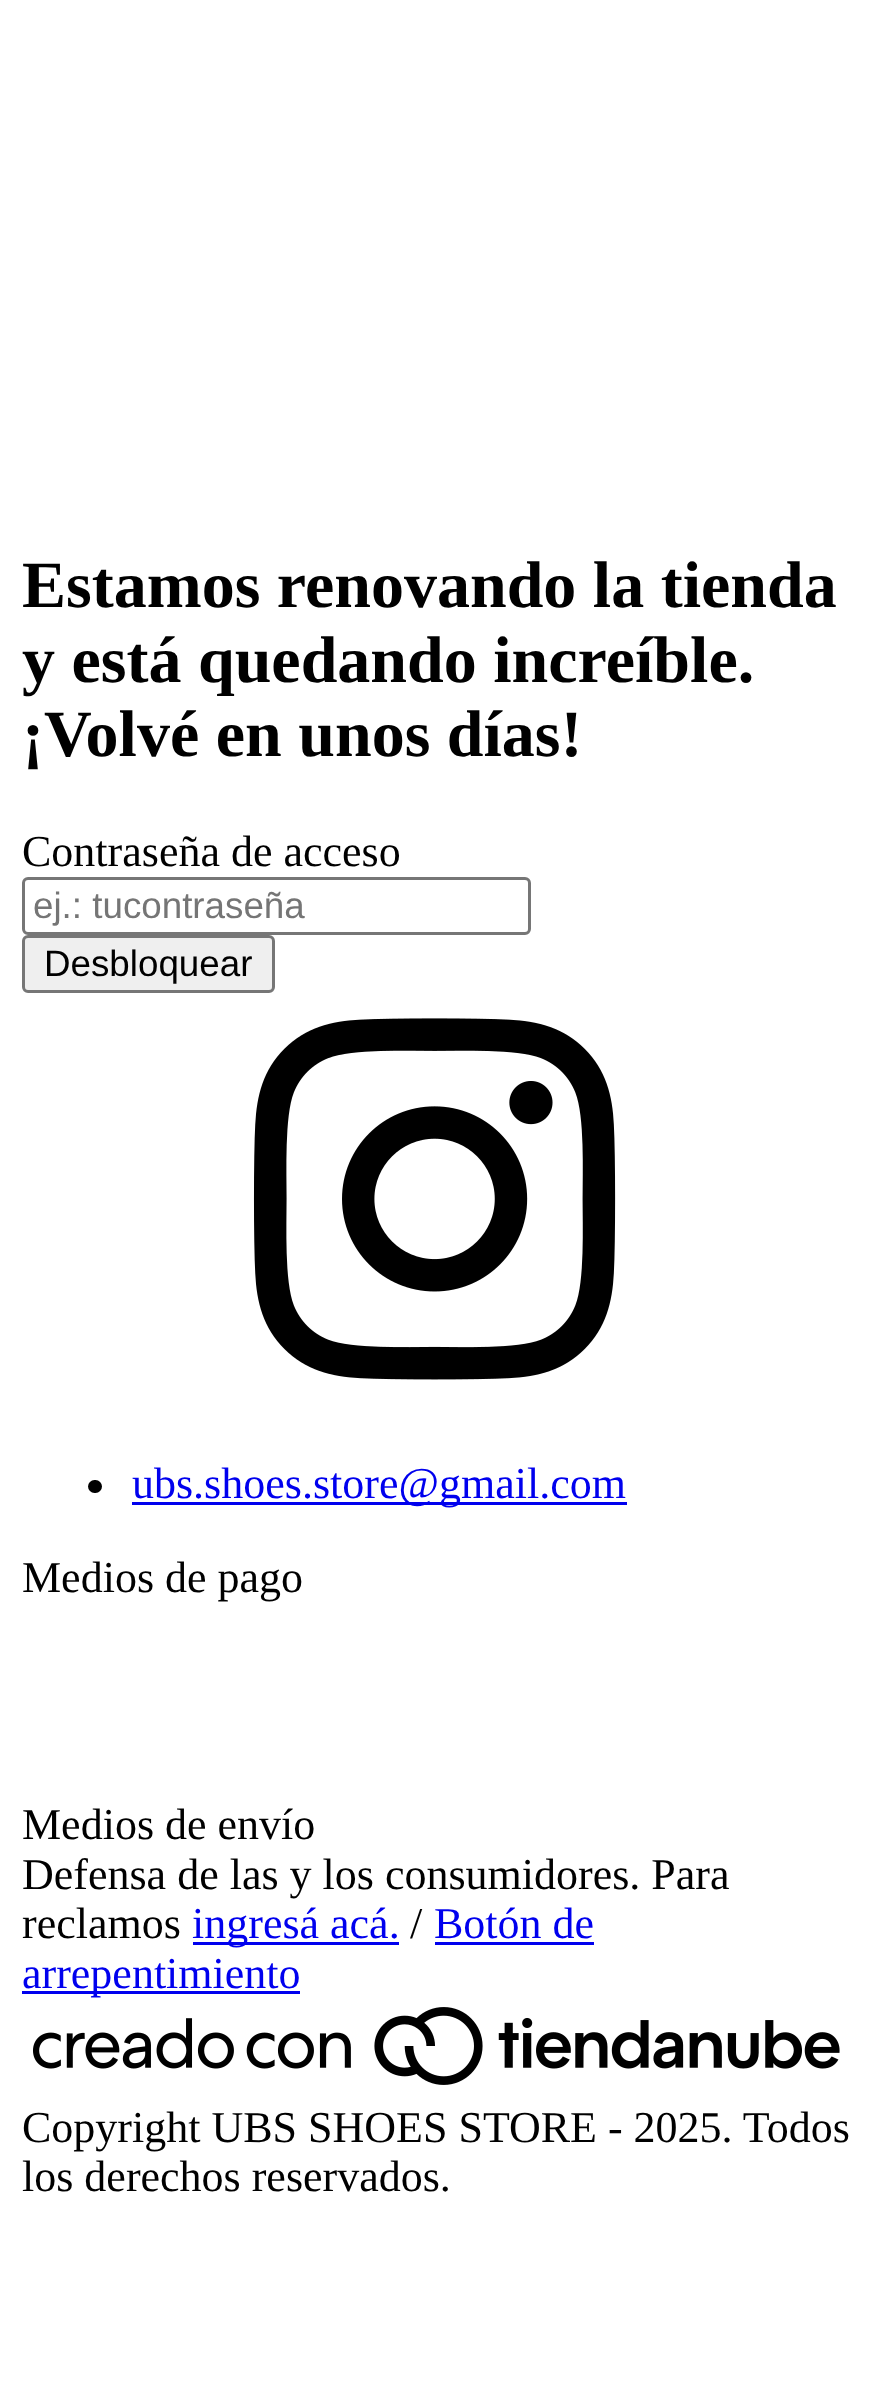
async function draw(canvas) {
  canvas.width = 884;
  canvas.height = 2391;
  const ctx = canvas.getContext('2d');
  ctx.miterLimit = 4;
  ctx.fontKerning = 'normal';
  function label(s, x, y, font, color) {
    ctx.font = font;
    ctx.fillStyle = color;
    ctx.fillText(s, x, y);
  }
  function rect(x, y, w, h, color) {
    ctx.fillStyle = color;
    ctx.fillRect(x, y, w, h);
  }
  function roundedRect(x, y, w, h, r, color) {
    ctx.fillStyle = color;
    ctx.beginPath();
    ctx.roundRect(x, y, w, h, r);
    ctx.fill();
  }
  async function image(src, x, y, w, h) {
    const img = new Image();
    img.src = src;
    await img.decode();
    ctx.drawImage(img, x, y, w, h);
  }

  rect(0, 0, 884, 2391, '#fff');
  label('Estamos renovando la tienda', 22, 607, 'bold 66px Liberation Serif', '#000');
  label('y está quedando increíble.', 22, 682, 'bold 66px Liberation Serif', '#000');
  label('¡Volvé en unos días!', 22, 756, 'bold 66px Liberation Serif', '#000');
  label('Contraseña de acceso', 22, 866, '44px Liberation Serif', '#000');
  ctx.beginPath();
  ctx.roundRect(23.5, 878.5, 506, 55, 4.5);
  ctx.strokeStyle = '#767676';
  ctx.lineWidth = 3;
  ctx.stroke();
  label('ej.: tucontraseña', 33, 918, '36.75px Liberation Sans', '#757575');
  ctx.fillStyle = '#efefef';
  ctx.beginPath();
  ctx.roundRect(23.5, 936.5, 250, 55, 4.5);
  ctx.fill();
  ctx.stroke();
  label('Desbloquear', 44, 976, '36.75px Liberation Sans', '#000');
  await image('assets/img1.png', 253, 1018, 363, 362);
  roundedRect(88, 1480, 14, 13, 6.5, '#000');
  rect(132, 1502, 495, 3, '#00e');
  label('ubs.shoes.store@gmail.com', 132, 1498, '44px Liberation Serif', '#00e');
  label('Medios de pago', 22, 1592, '44px Liberation Serif', '#000');
  label('Medios de envío', 22, 1839, '44px Liberation Serif', '#000');
  label('Defensa de las y los consumidores. Para', 22, 1889, '44px Liberation Serif', '#000');
  label('reclamos', 22, 1938, '44px Liberation Serif', '#000');
  rect(193, 1942, 206, 3, '#00e');
  label('ingresá acá.', 192, 1938, '44px Liberation Serif', '#00e');
  label('/', 410, 1938, '44px Liberation Serif', '#000');
  label('Botón de', 434, 1938, '44px Liberation Serif', '#00e');
  rect(435, 1942, 159, 3, '#00e');
  rect(22, 1991, 278, 3, '#00e');
  label('arrepentimiento', 22, 1988, '44px Liberation Serif', '#00e');
  await image('assets/img2.png', 33, 2007, 807, 78);
  label('Copyright UBS SHOES STORE - 2025. Todos', 22, 2142, '44px Liberation Serif', '#000');
  label('los derechos reservados.', 22, 2191, '44px Liberation Serif', '#000');
}

draw(document.querySelector('canvas'));
